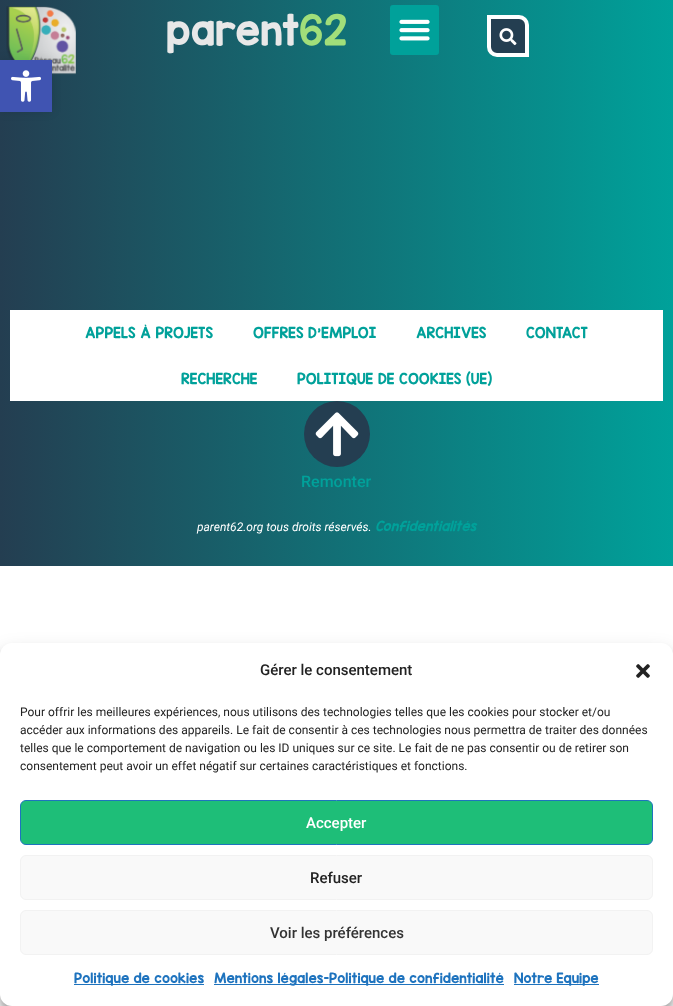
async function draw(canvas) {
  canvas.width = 673;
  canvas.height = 1006;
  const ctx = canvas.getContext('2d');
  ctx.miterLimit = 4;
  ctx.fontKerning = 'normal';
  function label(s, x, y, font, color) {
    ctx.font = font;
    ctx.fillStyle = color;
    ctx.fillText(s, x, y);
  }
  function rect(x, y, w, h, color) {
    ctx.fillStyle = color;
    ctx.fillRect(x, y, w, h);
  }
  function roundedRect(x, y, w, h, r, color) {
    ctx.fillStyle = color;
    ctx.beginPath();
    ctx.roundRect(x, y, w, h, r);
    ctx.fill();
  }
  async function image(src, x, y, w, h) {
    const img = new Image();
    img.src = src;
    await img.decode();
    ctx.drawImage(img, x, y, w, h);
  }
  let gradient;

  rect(0, 0, 673, 1006, '#fff');
  gradient = ctx.createLinearGradient(0, 40, 673, 40);
  gradient.addColorStop(0, '#243e51');
  gradient.addColorStop(1, '#00a19a');
  ctx.fillStyle = gradient;
  ctx.fillRect(0, 0, 673, 80);
  await image('assets/img1.png', 6, 6, 70, 69);
  label('parent', 166, 45, '36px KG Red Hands', '#e8e8e8');
  label('62', 299, 45, '36px KG Red Hands', '#a1de7a');
  roundedRect(390, 5, 49, 50, 3, '#00a19a');
  await image('assets/img2.png', 399, 19, 31, 22);
  ctx.fillStyle = '#243e51';
  ctx.beginPath();
  ctx.roundRect(489, 17, 38, 38, [0, 8, 0, 8]);
  ctx.fill();
  ctx.strokeStyle = '#fff';
  ctx.lineWidth = 4;
  ctx.stroke();
  await image('assets/img3.png', 499, 28, 18, 18);
  gradient = ctx.createLinearGradient(0, 323, 673, 323);
  gradient.addColorStop(0, '#243e51');
  gradient.addColorStop(1, '#00a19a');
  ctx.fillStyle = gradient;
  ctx.fillRect(0, 80, 673, 486);
  ctx.fillStyle = '#0000001a';
  ctx.filter = 'blur(5px)';
  ctx.beginPath();
  ctx.rect(0, 60, 52, 52);
  ctx.fill();
  ctx.filter = 'none';
  rect(0, 60, 52, 52, '#4054b2');
  await image('assets/img4.png', 11, 70, 30, 32);
  rect(10, 310, 653, 91, '#fff');
  label('APPELS À PROJETS', 85, 338, '13px KG Red Hands', '#00a19a');
  label('OFFRES D’EMPLOI', 253, 338, '13px KG Red Hands', '#00a19a');
  label('ARCHIVES', 416, 338, '13px KG Red Hands', '#00a19a');
  label('CONTACT', 526, 338, '13px KG Red Hands', '#00a19a');
  label('RECHERCHE', 181, 384, '13px KG Red Hands', '#00a19a');
  label('POLITIQUE DE COOKIES (UE)', 297, 384, '13px KG Red Hands', '#00a19a');
  ctx.fillStyle = '#243e51';
  ctx.beginPath();
  ctx.arc(337, 434, 33, 0, 2 * Math.PI);
  ctx.fill();
  await image('assets/img5.png', 315, 412, 44, 45);
  label('Remonter', 301, 487, '500 16px Roboto', '#00a19a');
  label('parent62.org tous droits réservés.', 197, 531, 'italic 12px Roboto', '#fff');
  label('Confidentialités', 375, 531, 'italic 12px KG Red Hands', '#00a19a');
  ctx.fillStyle = '#0000003b';
  ctx.filter = 'blur(3px)';
  ctx.beginPath();
  ctx.roundRect(0, 649, 673, 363, 12);
  ctx.fill();
  ctx.filter = 'none';
  ctx.fillStyle = '#00000030';
  ctx.filter = 'blur(10px)';
  ctx.beginPath();
  ctx.roundRect(0, 653, 673, 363, 12);
  ctx.fill();
  ctx.filter = 'none';
  roundedRect(0, 643, 673, 363, 12, '#fff');
  label('Gérer le consentement', 260, 675, '500 15px Roboto', '#222');
  await image('assets/img6.png', 636, 664, 14, 14);
  label('Pour offrir les meilleures expériences, nous utilisons des technologies telles que les cookies pour stocker et/ou', 20, 716, '12px Roboto', '#222');
  label('accéder aux informations des appareils. Le fait de consentir à ces technologies nous permettra de traiter des données', 20, 734, '12px Roboto', '#222');
  label('telles que le comportement de navigation ou les ID uniques sur ce site. Le fait de ne pas consentir ou de retirer son', 20, 752, '12px Roboto', '#222');
  label('consentement peut avoir un effet négatif sur certaines caractéristiques et fonctions.', 20, 770, '12px Roboto', '#222');
  ctx.fillStyle = '#1ebe78';
  ctx.beginPath();
  ctx.roundRect(20.5, 800.5, 632, 44, 5.5);
  ctx.fill();
  ctx.strokeStyle = '#1e73be';
  ctx.lineWidth = 1;
  ctx.stroke();
  label('Accepter', 306, 828, '500 15px Roboto', '#fff');
  ctx.fillStyle = '#f9f9f9';
  ctx.beginPath();
  ctx.roundRect(20.5, 855.5, 632, 44, 5.5);
  ctx.fill();
  ctx.strokeStyle = '#f2f2f2';
  ctx.stroke();
  label('Refuser', 310, 883, '500 15px Roboto', '#222');
  ctx.fillStyle = '#f9f9f9';
  ctx.beginPath();
  ctx.roundRect(20.5, 910.5, 632, 44, 5.5);
  ctx.fill();
  ctx.stroke();
  label('Voir les préférences', 270, 938, '500 15px Roboto', '#333');
  rect(74, 984, 130, 1, '#1e73be');
  label('Politique de cookies', 74, 983, '12px KG Red Hands', '#1e73be');
  rect(214, 984, 290, 1, '#1e73be');
  label('Mentions légales-Politique de confidentialité', 214, 983, '12px KG Red Hands', '#1e73be');
  rect(514, 984, 85, 1, '#1e73be');
  label('Notre Equipe', 514, 983, '12px KG Red Hands', '#1e73be');
}

draw(document.querySelector('canvas'));
